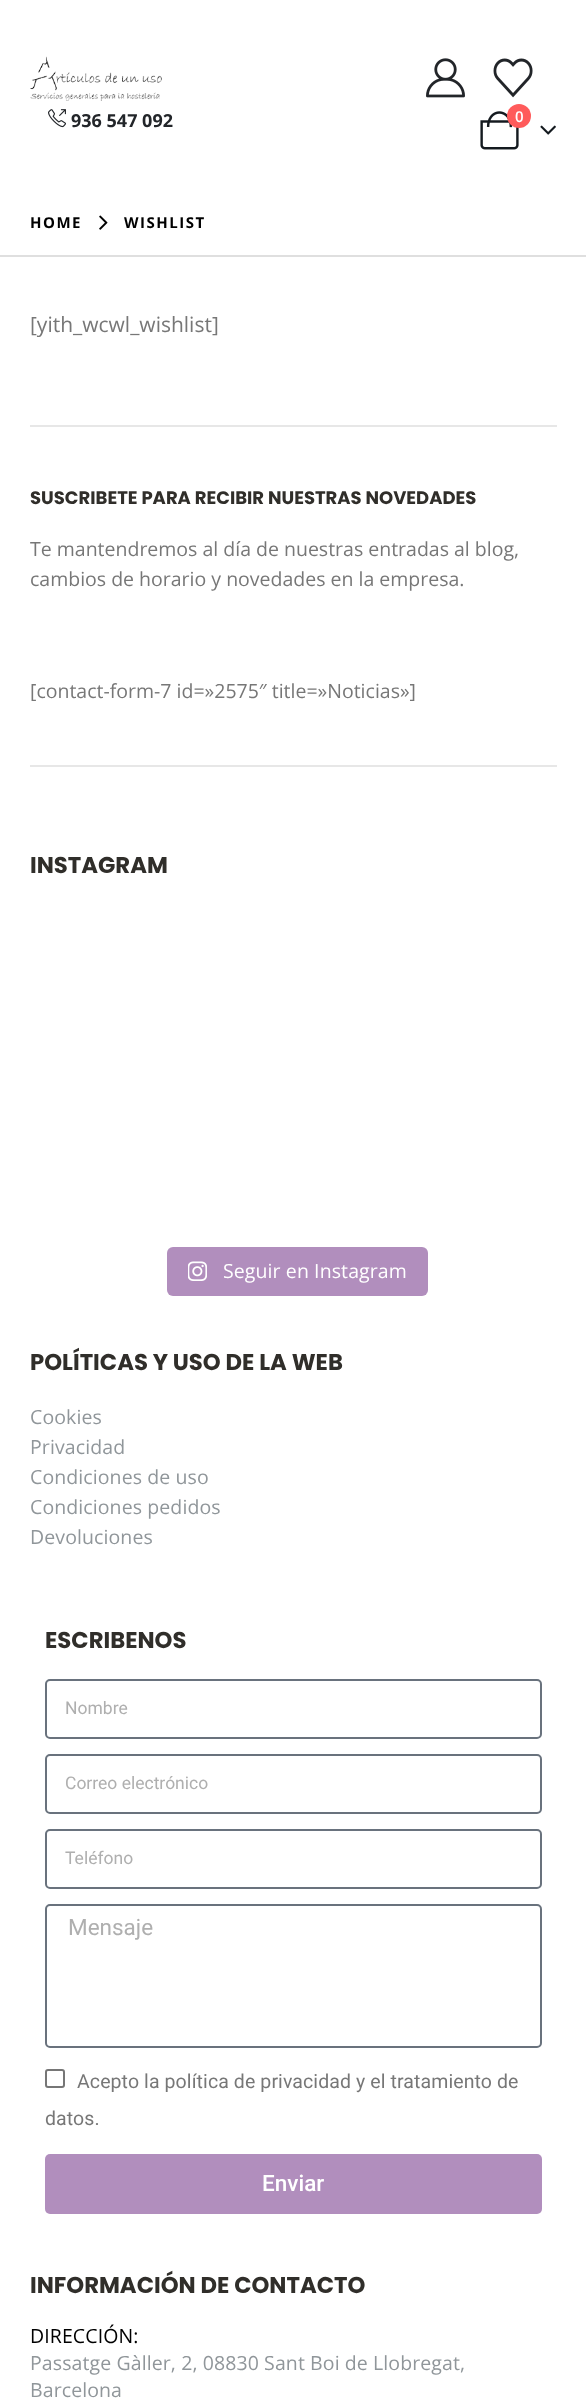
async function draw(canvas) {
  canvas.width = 586;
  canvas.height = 2402;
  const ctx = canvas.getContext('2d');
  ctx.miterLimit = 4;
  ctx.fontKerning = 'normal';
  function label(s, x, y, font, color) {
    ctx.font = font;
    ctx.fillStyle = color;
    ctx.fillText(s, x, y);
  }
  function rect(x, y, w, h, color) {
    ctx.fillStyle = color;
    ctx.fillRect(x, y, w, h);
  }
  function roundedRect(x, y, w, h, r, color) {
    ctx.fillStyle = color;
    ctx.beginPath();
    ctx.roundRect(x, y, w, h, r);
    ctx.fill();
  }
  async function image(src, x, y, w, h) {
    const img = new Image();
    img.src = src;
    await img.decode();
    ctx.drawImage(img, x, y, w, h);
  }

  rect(0, 0, 586, 2402, '#fff');
  await image('assets/img1.png', 30, 56, 132, 45);
  await image('assets/img2.png', 48, 109, 18, 19);
  label('936 547 092', 71, 127, 'bold 18px Open Sans', '#222529');
  await image('assets/img3.png', 426, 58, 39, 40);
  await image('assets/img4.png', 493, 58, 40, 40);
  await image('assets/img5.png', 480, 111, 39, 39);
  ctx.fillStyle = '#ff5b5b';
  ctx.beginPath();
  ctx.arc(519, 116, 12, 0, 2 * Math.PI);
  ctx.fill();
  label('0', 515, 122, '600 15px Open Sans', '#fff');
  await image('assets/img6.png', 540, 125, 16, 10);
  rect(0, 255, 586, 2, '#dfdfdf');
  ctx.letterSpacing = '1.5px';
  label('HOME', 30, 228, 'bold 15px Open Sans', '#000');
  await image('assets/img7.png', 99, 215, 9, 15);
  label('WISHLIST', 124, 228, 'bold 15px Open Sans', '#000');
  ctx.letterSpacing = '0px';
  label('[yith_wcwl_wishlist]', 30, 332, '21px Open Sans', '#777');
  rect(30, 425, 527, 2, '#e7e7e7');
  label('SUSCRIBETE PARA RECIBIR NUESTRAS NOVEDADES', 30, 504, 'bold 18px Poppins', '#302e2a');
  label('Te mantendremos al día de nuestras entradas al blog,', 30, 556, '19.5px Open Sans', '#777');
  label('cambios de horario y novedades en la empresa.', 30, 586, '19.5px Open Sans', '#777');
  label('[contact-form-7 id=»2575″ title=»Noticias»]', 30, 698, '19.5px Open Sans', '#777');
  rect(30, 765, 527, 2, '#e7e7e7');
  label('INSTAGRAM', 30, 873, 'bold 22.75px Poppins', '#302e2a');
  roundedRect(167, 1247, 261, 49, 6, '#b18ebd');
  await image('assets/img8.png', 188, 1261, 19, 20);
  ctx.letterSpacing = '0.1px';
  label('Seguir en Instagram', 223, 1278, '19.5px Open Sans', '#fff');
  ctx.letterSpacing = '0px';
  label('POLÍTICAS Y USO DE LA WEB', 30, 1370, 'bold 22.75px Poppins', '#302e2a');
  ctx.letterSpacing = '0.1px';
  label('Cookies', 30, 1424, '19.5px Open Sans', '#90969a');
  label('Privacidad', 30, 1454, '19.5px Open Sans', '#90969a');
  label('Condiciones de uso', 30, 1484, '19.5px Open Sans', '#90969a');
  label('Condiciones pedidos', 30, 1514, '19.5px Open Sans', '#90969a');
  label('Devoluciones', 30, 1544, '19.5px Open Sans', '#90969a');
  ctx.letterSpacing = '0px';
  label('ESCRIBENOS', 45, 1648, 'bold 22.75px Poppins', '#302e2a');
  ctx.beginPath();
  ctx.roundRect(46, 1680, 495, 58, 4);
  ctx.strokeStyle = '#69727d';
  ctx.lineWidth = 2;
  ctx.stroke();
  label('Nombre', 65, 1714, '17.5px Roboto', '#afafaf');
  ctx.beginPath();
  ctx.roundRect(46, 1755, 495, 58, 4);
  ctx.stroke();
  label('Correo electrónico', 65, 1789, '17.5px Roboto', '#afafaf');
  ctx.beginPath();
  ctx.roundRect(46, 1830, 495, 58, 4);
  ctx.stroke();
  label('Teléfono', 65, 1864, '17.5px Roboto', '#afafaf');
  ctx.beginPath();
  ctx.roundRect(46, 1905, 495, 142, 4);
  ctx.stroke();
  label('Mensaje', 68, 1935, '22.5px Roboto', '#afafaf');
  ctx.beginPath();
  ctx.roundRect(46, 2070, 18, 17, 2);
  ctx.strokeStyle = '#767676';
  ctx.stroke();
  ctx.letterSpacing = '0.1px';
  label('Acepto la política de privacidad y el tratamiento de', 77, 2088, '19.5px Roboto', '#777');
  label('datos.', 45, 2125, '19.5px Roboto', '#777');
  roundedRect(45, 2154, 497, 60, 5, '#b18ebd');
  ctx.letterSpacing = '0px';
  label('Enviar', 262, 2191, '500 22.5px Roboto', '#fff');
  label('INFORMACIÓN DE CONTACTO', 30, 2293, 'bold 22.75px Poppins', '#302e2a');
  ctx.letterSpacing = '0.1px';
  label('DIRECCIÓN:', 30, 2343, '19.5px Open Sans', '#000');
  label('Passatge Gàller, 2, 08830 Sant Boi de Llobregat,', 30, 2370, '19.5px Open Sans', '#90969a');
  label('Barcelona', 30, 2397, '19.5px Open Sans', '#90969a');
}

draw(document.querySelector('canvas'));
